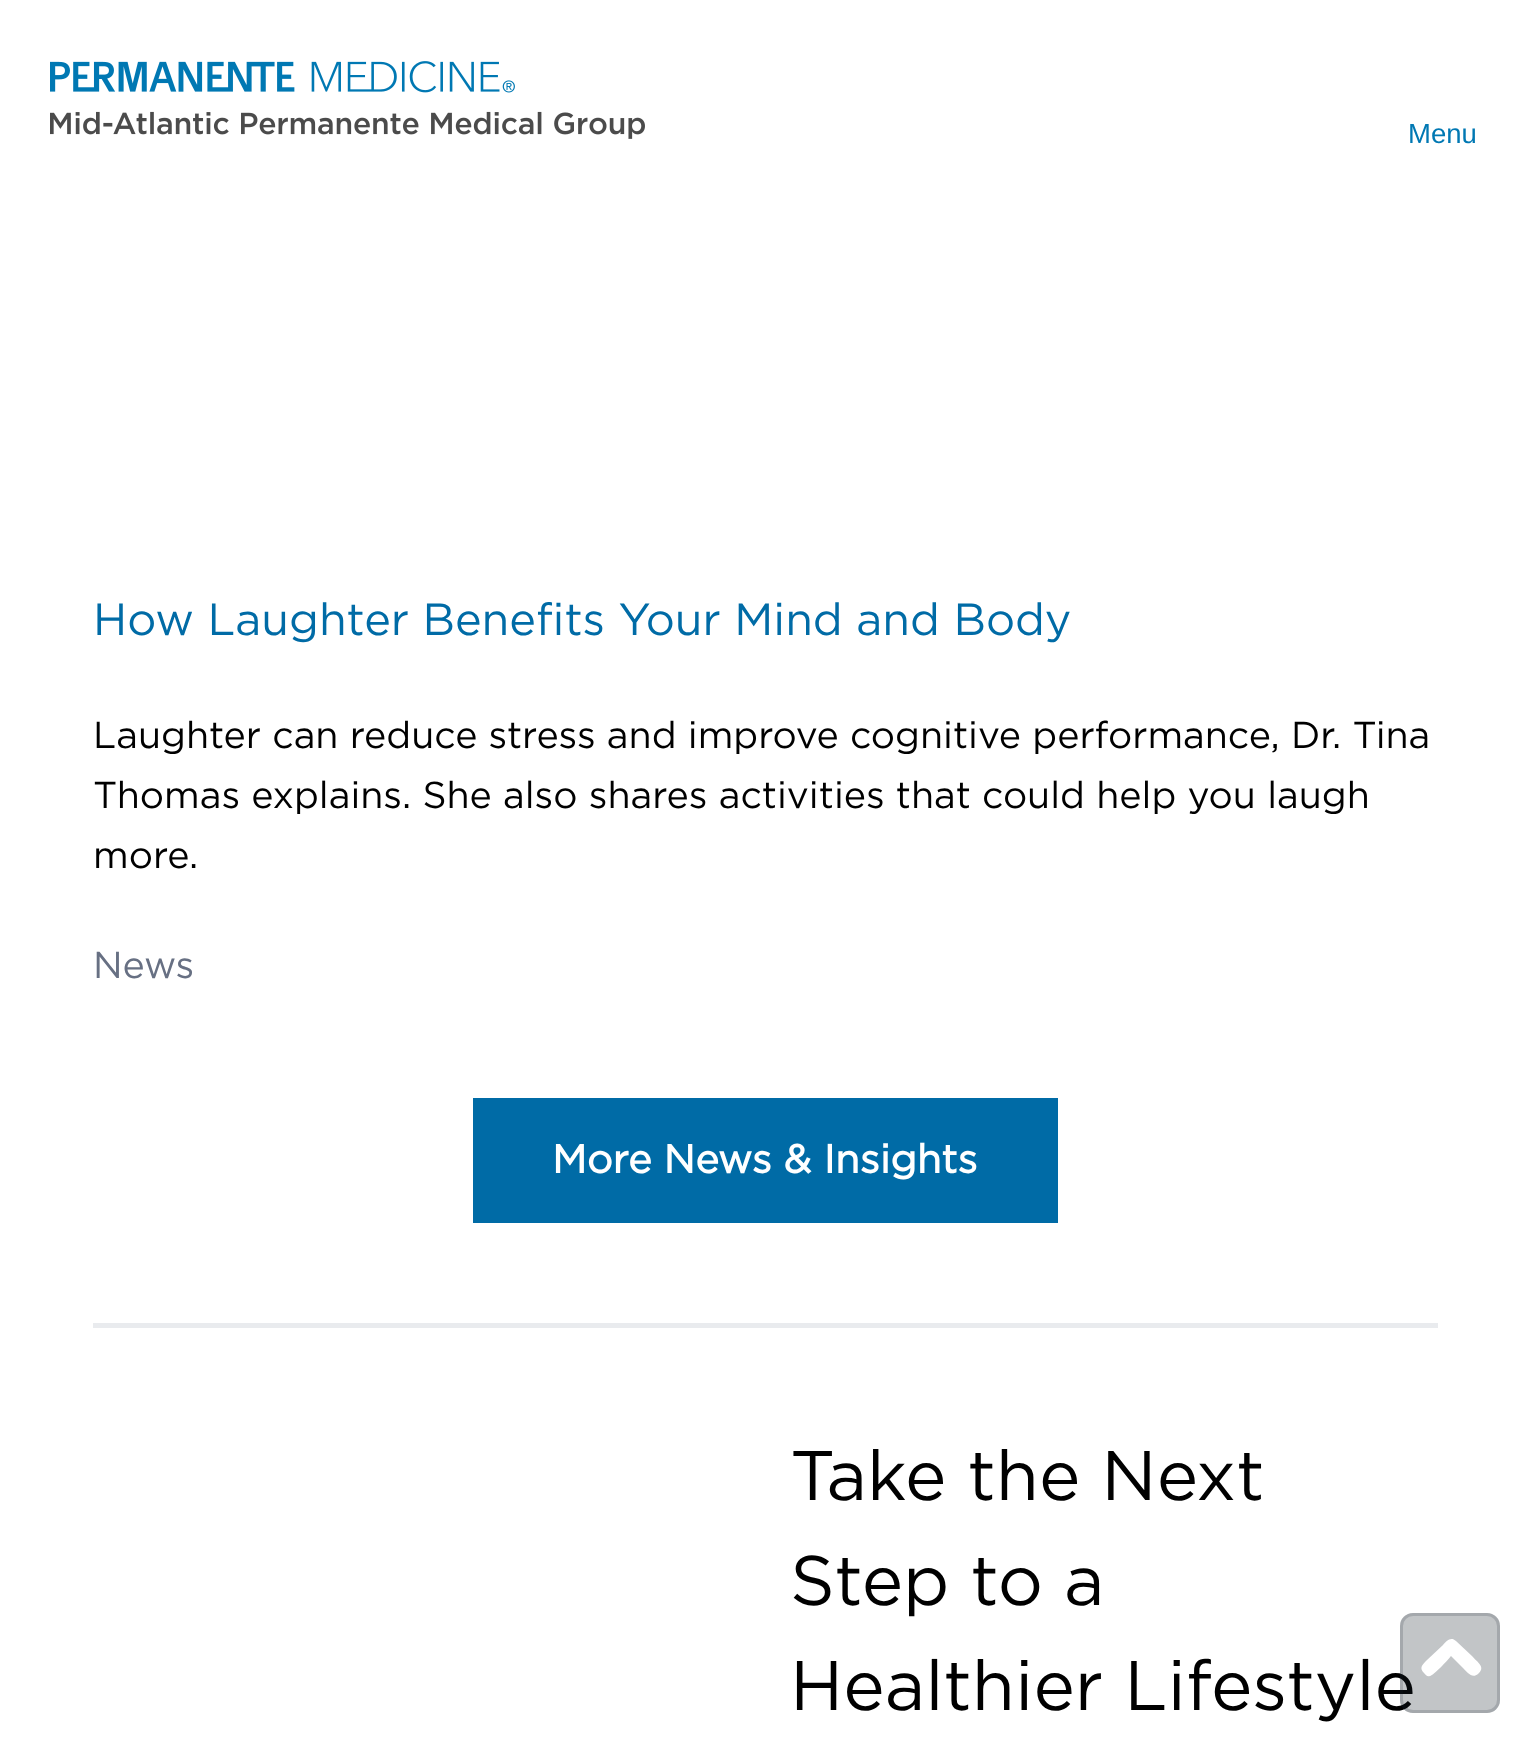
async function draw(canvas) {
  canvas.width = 1529;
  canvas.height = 1742;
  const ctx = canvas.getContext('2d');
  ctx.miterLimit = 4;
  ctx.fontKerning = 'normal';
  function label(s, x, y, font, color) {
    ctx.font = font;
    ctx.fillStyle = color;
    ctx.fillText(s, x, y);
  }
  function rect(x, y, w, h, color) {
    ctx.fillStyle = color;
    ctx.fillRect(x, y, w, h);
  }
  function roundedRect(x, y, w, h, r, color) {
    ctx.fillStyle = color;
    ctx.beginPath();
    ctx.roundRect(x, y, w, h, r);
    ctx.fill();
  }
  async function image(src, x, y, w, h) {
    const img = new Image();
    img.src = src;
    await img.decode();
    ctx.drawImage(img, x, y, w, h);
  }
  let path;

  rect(0, 0, 1529, 1742, '#fff');
  await image('assets/img1.png', 50, 61, 595, 78);
  label('Menu', 1408, 143, '27.5px Liberation Sans', '#0078b3');
  label('How Laughter Benefits Your Mind and Body', 93, 635, '45px Gotham', '#006ba6');
  label('Laughter can reduce stress and improve cognitive performance, Dr. Tina', 93, 748, '37.5px Gotham', '#000');
  label('Thomas explains. She also shares activities that could help you laugh', 93, 808, '37.5px Gotham', '#000');
  label('more.', 93, 868, '37.5px Gotham', '#000');
  label('News', 93, 978, '37.5px Gotham', '#677083');
  rect(473, 1098, 585, 125, '#006ba6');
  label('More News & Insights', 552, 1173, 'bold 40px Gotham', '#fff');
  rect(93, 1323, 1345, 5, '#e9ebee');
  label('Take the Next', 790, 1500, '70px Gotham', '#000');
  label('Step to a', 790, 1605, '70px Gotham', '#000');
  label('Healthier Lifestyle', 790, 1710, '70px Gotham', '#000');
  roundedRect(1400, 1613, 100, 100, 13, '#141e2842');
  ctx.fillStyle = '#fff';
  path = new Path2D('M1456 1641L1472 1656C1478 1663 1486 1667 1478 1674C1472 1679 1467 1672 1463 1668L1451 1656C1448 1660 1434 1675 1430 1676C1427 1677 1426 1675 1424 1673C1419 1668 1422 1665 1427 1660L1443 1645C1446 1641 1451 1636 1456 1641Z');
  ctx.fill(path);
  ctx.beginPath();
  ctx.roundRect(1401.5, 1614.5, 97, 97, 11.5);
  ctx.strokeStyle = '#141e282b';
  ctx.lineWidth = 3;
  ctx.stroke();
}

draw(document.querySelector('canvas'));
